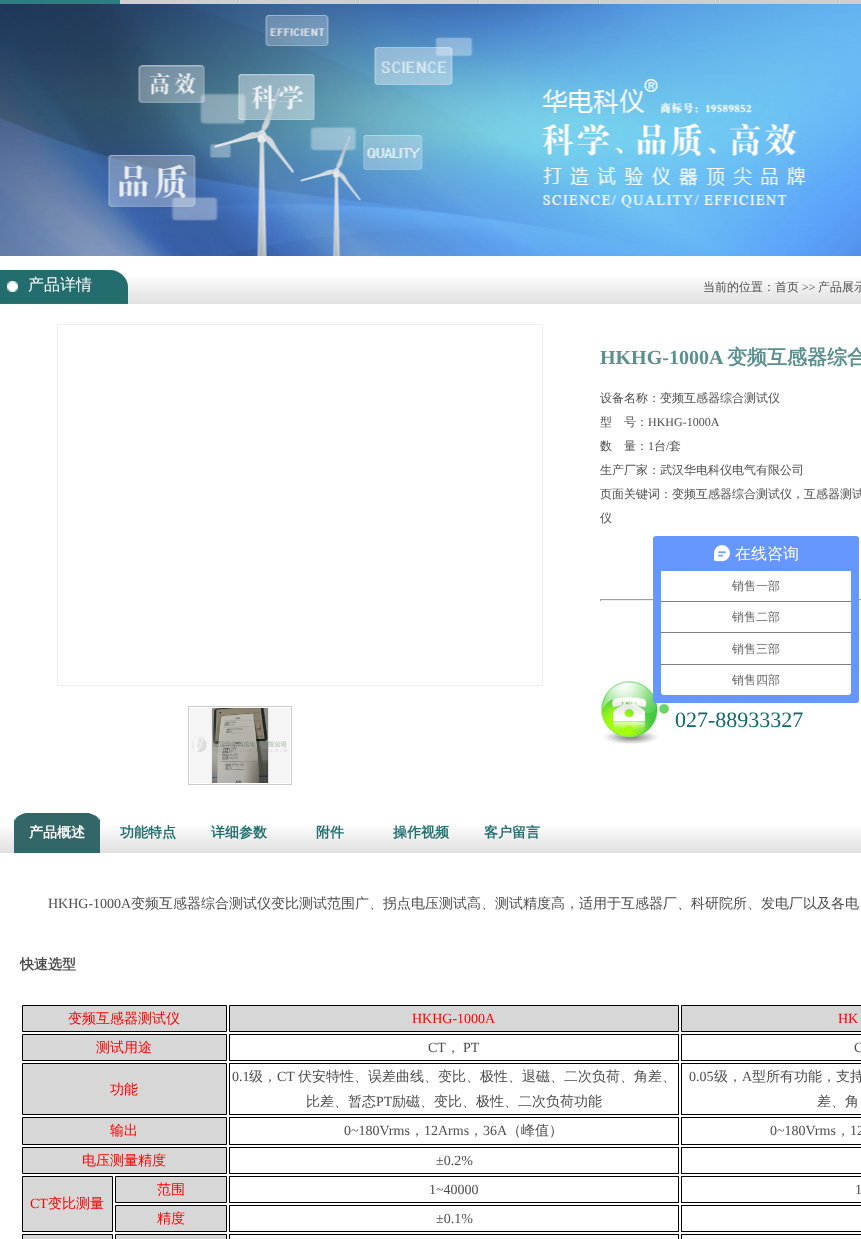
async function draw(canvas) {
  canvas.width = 861;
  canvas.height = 1239;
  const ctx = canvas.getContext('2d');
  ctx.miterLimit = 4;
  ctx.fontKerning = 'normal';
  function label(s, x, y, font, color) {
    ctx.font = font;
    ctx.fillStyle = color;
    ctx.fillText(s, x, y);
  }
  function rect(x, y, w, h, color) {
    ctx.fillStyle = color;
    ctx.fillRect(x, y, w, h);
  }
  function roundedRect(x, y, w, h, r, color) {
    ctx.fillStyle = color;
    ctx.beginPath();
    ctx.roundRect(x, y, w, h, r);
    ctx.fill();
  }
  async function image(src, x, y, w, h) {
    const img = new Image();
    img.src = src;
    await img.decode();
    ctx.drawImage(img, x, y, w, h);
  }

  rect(0, 0, 861, 1239, '#fff');
  rect(120, 0, 741, 4, '#cfcfcf');
  rect(0, 0, 120, 4, '#2b7f81');
  await image('assets/img1.png', 238, 0, 2, 3);
  await image('assets/img1.png', 358, 0, 2, 3);
  await image('assets/img1.png', 478, 0, 2, 3);
  await image('assets/img1.png', 598, 0, 2, 3);
  await image('assets/img1.png', 718, 0, 2, 3);
  await image('assets/img1.png', 838, 0, 2, 3);
  await image('assets/img2.png', 0, 4, 861, 252);
  await image('assets/img3.png', 128, 277, 733, 27);
  await image('assets/img4.png', 0, 270, 128, 34);
  label('产品详情', 28, 290, '500 16px WenQuanYi Zen Hei', '#fff');
  label('当前的位置：首页', 703, 291, '500 12px WenQuanYi Zen Hei', '#4d4d4d');
  label('>>', 802, 291, '12px Liberation Serif', '#4d4d4d');
  label('产品展示', 818, 291, '500 12px WenQuanYi Zen Hei', '#4d4d4d');
  ctx.strokeStyle = '#eee';
  ctx.strokeRect(57.5, 324.5, 485, 361);
  ctx.strokeStyle = '#ccc';
  ctx.strokeRect(188.5, 706.5, 103, 78);
  await image('assets/img5.png', 190, 708, 100, 75);
  label('HKHG-1000A', 600, 364, 'bold 20px Liberation Serif', '#5a9090');
  label('变频互感器综合', 727, 364, 'bold 20px WenQuanYi Zen Hei', '#5a9090');
  label('设备名称：变频互感器综合测试仪', 600, 402, '500 12px WenQuanYi Zen Hei', '#4d4d4d');
  label('型', 600, 426, '500 12px WenQuanYi Zen Hei', '#4d4d4d');
  label('号：', 624, 426, '500 12px WenQuanYi Zen Hei', '#4d4d4d');
  label('HKHG-1000A', 648, 426, '12px Liberation Serif', '#4d4d4d');
  label('数', 600, 450, '500 12px WenQuanYi Zen Hei', '#4d4d4d');
  label('量：', 624, 450, '500 12px WenQuanYi Zen Hei', '#4d4d4d');
  label('1', 648, 450, '12px Liberation Serif', '#4d4d4d');
  label('台', 654, 450, '500 12px WenQuanYi Zen Hei', '#4d4d4d');
  label('/', 666, 450, '12px Liberation Serif', '#4d4d4d');
  label('套', 669, 450, '500 12px WenQuanYi Zen Hei', '#4d4d4d');
  label('生产厂家：武汉华电科仪电气有限公司', 600, 474, '500 12px WenQuanYi Zen Hei', '#4d4d4d');
  label('页面关键词：变频互感器综合测试仪，互感器测试', 600, 498, '500 12px WenQuanYi Zen Hei', '#4d4d4d');
  label('仪', 600, 522, '500 12px WenQuanYi Zen Hei', '#4d4d4d');
  rect(600, 599, 261, 1, '#9f9f9f');
  rect(600, 600, 261, 1, '#eee');
  rect(600, 599, 1, 2, '#9f9f9f');
  await image('assets/img6.png', 600, 681, 69, 63);
  label('027-88933327', 675, 727, '22px Liberation Serif', '#0c6a6a');
  await image('assets/img7.png', 0, 826, 861, 27);
  await image('assets/img8.png', 14, 813, 86, 40);
  label('产品概述', 29, 837, 'bold 14px WenQuanYi Zen Hei', '#fff');
  label('功能特点', 120, 837, 'bold 14px WenQuanYi Zen Hei', '#226e6e');
  label('详细参数', 211, 837, 'bold 14px WenQuanYi Zen Hei', '#226e6e');
  label('附件', 316, 837, 'bold 14px WenQuanYi Zen Hei', '#226e6e');
  label('操作视频', 393, 837, 'bold 14px WenQuanYi Zen Hei', '#226e6e');
  label('客户留言', 484, 837, 'bold 14px WenQuanYi Zen Hei', '#226e6e');
  label('HKHG-1000A', 48, 908, '14px Liberation Serif', '#4d4d4d');
  label('变频互感器综合测试仪变比测试范围广、拐点电压测试高、测试精度高，适用于互感器厂、科研院所、发电厂以及各电', 131, 908, '500 14px WenQuanYi Zen Hei', '#4d4d4d');
  label('快速选型', 20, 969, 'bold 14px WenQuanYi Zen Hei', '#4d4d4d');
  ctx.fillStyle = '#d7d7d7';
  ctx.beginPath();
  ctx.rect(22.5, 1005.5, 204, 26);
  ctx.fill();
  ctx.strokeStyle = '#000';
  ctx.stroke();
  label('变频互感器测试仪', 68, 1023, '500 14px WenQuanYi Zen Hei', '#f00');
  ctx.fillStyle = '#d7d7d7';
  ctx.beginPath();
  ctx.rect(229.5, 1005.5, 449, 26);
  ctx.fill();
  ctx.stroke();
  label('HKHG-1000A', 412, 1023, '14px Liberation Serif', '#f00');
  ctx.fillStyle = '#d7d7d7';
  ctx.beginPath();
  ctx.rect(681.5, 1005.5, 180, 26);
  ctx.fill();
  ctx.stroke();
  label('HK', 838, 1023, '14px Liberation Serif', '#f00');
  ctx.fillStyle = '#d7d7d7';
  ctx.beginPath();
  ctx.rect(22.5, 1034.5, 204, 26);
  ctx.fill();
  ctx.stroke();
  label('测试用途', 96, 1052, '500 14px WenQuanYi Zen Hei', '#f00');
  ctx.strokeRect(229.5, 1034.5, 449, 26);
  label('CT', 428, 1052, '14px Liberation Serif', '#4d4d4d');
  label('，', 446, 1052, '500 14px WenQuanYi Zen Hei', '#4d4d4d');
  label('PT', 463, 1052, '14px Liberation Serif', '#4d4d4d');
  ctx.strokeRect(681.5, 1034.5, 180, 26);
  label('C', 854, 1052, '14px Liberation Serif', '#4d4d4d');
  ctx.fillStyle = '#d7d7d7';
  ctx.beginPath();
  ctx.rect(22.5, 1063.5, 204, 51);
  ctx.fill();
  ctx.stroke();
  label('功能', 110, 1094, '500 14px WenQuanYi Zen Hei', '#f00');
  ctx.strokeRect(229.5, 1063.5, 449, 51);
  label('0.1', 232, 1081, '14px Liberation Serif', '#4d4d4d');
  label('级，', 249, 1081, '500 14px WenQuanYi Zen Hei', '#4d4d4d');
  label('CT', 277, 1081, '14px Liberation Serif', '#4d4d4d');
  label('伏安特性、误差曲线、变比、极性、退磁、二次负荷、角差、', 298, 1081, '500 14px WenQuanYi Zen Hei', '#4d4d4d');
  label('比差、暂态', 306, 1106, '500 14px WenQuanYi Zen Hei', '#4d4d4d');
  label('PT', 376, 1106, '14px Liberation Serif', '#4d4d4d');
  label('励磁、变比、极性、二次负荷功能', 392, 1106, '500 14px WenQuanYi Zen Hei', '#4d4d4d');
  ctx.strokeRect(681.5, 1063.5, 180, 51);
  label('0.05', 689, 1081, '14px Liberation Serif', '#4d4d4d');
  label('级，', 714, 1081, '500 14px WenQuanYi Zen Hei', '#4d4d4d');
  label('A', 742, 1081, '14px Liberation Serif', '#4d4d4d');
  label('型所有功能，支持', 752, 1081, '500 14px WenQuanYi Zen Hei', '#4d4d4d');
  label('差、角', 817, 1106, '500 14px WenQuanYi Zen Hei', '#4d4d4d');
  ctx.fillStyle = '#d7d7d7';
  ctx.beginPath();
  ctx.rect(22.5, 1117.5, 204, 27);
  ctx.fill();
  ctx.stroke();
  label('输出', 110, 1135, '500 14px WenQuanYi Zen Hei', '#f00');
  ctx.strokeRect(229.5, 1117.5, 449, 27);
  label('0~180Vrms', 344, 1135, '14px Liberation Serif', '#4d4d4d');
  label('，', 410, 1135, '500 14px WenQuanYi Zen Hei', '#4d4d4d');
  label('12Arms', 424, 1135, '14px Liberation Serif', '#4d4d4d');
  label('，', 469, 1135, '500 14px WenQuanYi Zen Hei', '#4d4d4d');
  label('36A', 483, 1135, '14px Liberation Serif', '#4d4d4d');
  label('（峰值）', 507, 1135, '500 14px WenQuanYi Zen Hei', '#4d4d4d');
  ctx.strokeRect(681.5, 1117.5, 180, 27);
  label('0~180Vrms', 770, 1135, '14px Liberation Serif', '#4d4d4d');
  label('，', 836, 1135, '500 14px WenQuanYi Zen Hei', '#4d4d4d');
  label('12', 850, 1135, '14px Liberation Serif', '#4d4d4d');
  ctx.fillStyle = '#d7d7d7';
  ctx.beginPath();
  ctx.rect(22.5, 1147.5, 204, 26);
  ctx.fill();
  ctx.stroke();
  label('电压测量精度', 82, 1165, '500 14px WenQuanYi Zen Hei', '#f00');
  ctx.strokeRect(229.5, 1147.5, 449, 26);
  label('±0.2%', 436, 1165, '14px Liberation Serif', '#4d4d4d');
  ctx.strokeRect(681.5, 1147.5, 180, 26);
  ctx.fillStyle = '#d7d7d7';
  ctx.beginPath();
  ctx.rect(115.5, 1176.5, 111, 26);
  ctx.fill();
  ctx.stroke();
  label('范围', 157, 1194, '500 14px WenQuanYi Zen Hei', '#f00');
  ctx.strokeRect(229.5, 1176.5, 449, 26);
  label('1~40000', 429, 1194, '14px Liberation Serif', '#4d4d4d');
  ctx.strokeRect(681.5, 1176.5, 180, 26);
  label('1', 855, 1194, '14px Liberation Serif', '#4d4d4d');
  ctx.fillStyle = '#d7d7d7';
  ctx.beginPath();
  ctx.rect(22.5, 1176.5, 90, 55);
  ctx.fill();
  ctx.stroke();
  label('CT', 30, 1208, '14px Liberation Serif', '#f00');
  label('变比测量', 48, 1208, '500 14px WenQuanYi Zen Hei', '#f00');
  ctx.fillStyle = '#d7d7d7';
  ctx.beginPath();
  ctx.rect(115.5, 1205.5, 111, 26);
  ctx.fill();
  ctx.stroke();
  label('精度', 157, 1223, '500 14px WenQuanYi Zen Hei', '#f00');
  ctx.strokeRect(229.5, 1205.5, 449, 26);
  label('±0.1%', 436, 1223, '14px Liberation Serif', '#4d4d4d');
  ctx.strokeRect(681.5, 1205.5, 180, 26);
  ctx.fillStyle = '#d7d7d7';
  ctx.beginPath();
  ctx.rect(22.5, 1234.5, 90, 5);
  ctx.fill();
  ctx.stroke();
  ctx.beginPath();
  ctx.rect(115.5, 1234.5, 111, 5);
  ctx.fill();
  ctx.stroke();
  ctx.strokeRect(229.5, 1234.5, 449, 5);
  ctx.strokeRect(681.5, 1234.5, 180, 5);
  roundedRect(653, 536, 206, 167, 3, '#6696ff');
  await image('assets/img9.png', 714, 545, 16, 17);
  label('在线咨询', 735, 559, '500 16px WenQuanYi Zen Hei', '#fff');
  rect(661, 571, 190, 30, '#fff');
  rect(661, 601, 190, 1, '#808080');
  label('销售一部', 732, 590, '500 12px WenQuanYi Zen Hei', '#666');
  rect(661, 602, 190, 30, '#fff');
  rect(661, 632, 190, 1, '#808080');
  label('销售二部', 732, 621, '500 12px WenQuanYi Zen Hei', '#666');
  rect(661, 633, 190, 31, '#fff');
  rect(661, 664, 190, 1, '#808080');
  label('销售三部', 732, 653, '500 12px WenQuanYi Zen Hei', '#666');
  ctx.fillStyle = '#fff';
  ctx.beginPath();
  ctx.roundRect(661, 665, 190, 30, [0, 0, 3, 3]);
  ctx.fill();
  label('销售四部', 732, 684, '500 12px WenQuanYi Zen Hei', '#666');
}

draw(document.querySelector('canvas'));
